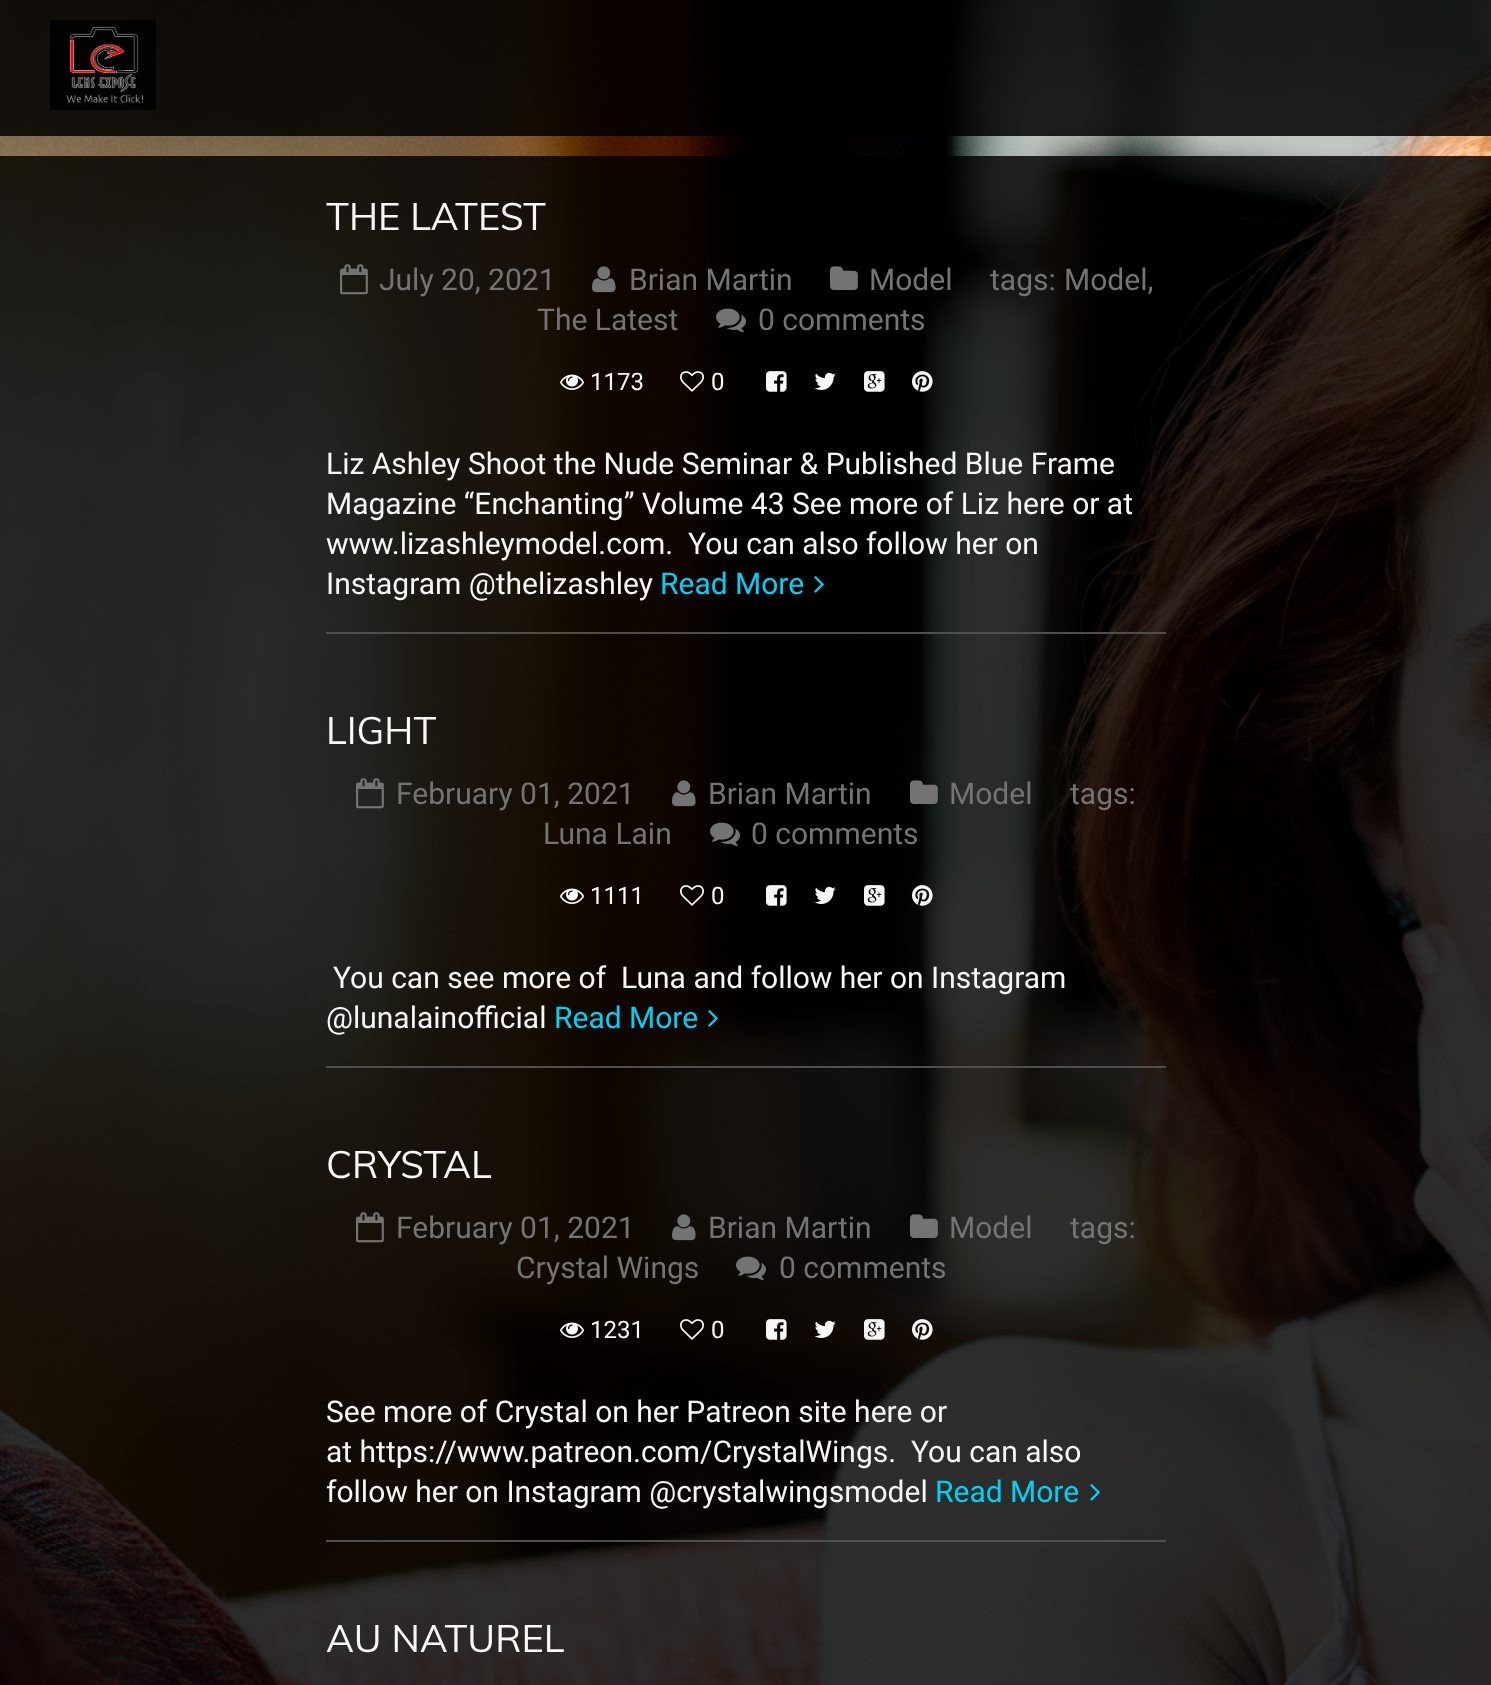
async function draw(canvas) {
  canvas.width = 1491;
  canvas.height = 1685;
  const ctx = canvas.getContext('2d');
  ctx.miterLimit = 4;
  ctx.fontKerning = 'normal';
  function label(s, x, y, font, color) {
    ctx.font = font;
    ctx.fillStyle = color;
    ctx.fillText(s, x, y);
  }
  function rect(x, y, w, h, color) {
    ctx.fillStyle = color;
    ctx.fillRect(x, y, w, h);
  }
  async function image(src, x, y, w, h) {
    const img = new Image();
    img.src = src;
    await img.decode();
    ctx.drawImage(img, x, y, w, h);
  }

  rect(0, 0, 1491, 1685, '#fff');
  await image('assets/img1.png', 0, 0, 1491, 1685);
  rect(0, 0, 1491, 136, '#000000d9');
  await image('assets/img2.png', 50, 20, 106, 90);
  rect(326, 632, 840, 2, '#515151f7');
  label('THE LATEST', 326, 230, '38px Muli', '#f8f7f7');
  await image('assets/img3.png', 340, 264, 28, 31);
  label('July 20, 2021', 379, 290, '30px Roboto', '#747474');
  await image('assets/img4.png', 592, 266, 24, 27);
  label('Brian Martin', 629, 290, '30px Roboto', '#747474');
  await image('assets/img5.png', 830, 266, 28, 24);
  label('Model', 869, 290, '30px Roboto', '#747474');
  label('tags:', 990, 290, '30px Roboto', '#747474');
  label('Model,', 1064, 290, '30px Roboto', '#747474');
  label('The Latest', 537, 330, '30px Roboto', '#747474');
  await image('assets/img6.png', 716, 308, 30, 25);
  label('0 comments', 758, 330, '30px Roboto', '#747474');
  await image('assets/img7.png', 560, 374, 24, 16);
  label('1173', 590, 390, '24px Roboto', '#f8f7f7');
  await image('assets/img8.png', 680, 371, 24, 21);
  label('0', 711, 390, '24px Roboto', '#f8f7f7');
  await image('assets/img9.png', 766, 371, 21, 21);
  await image('assets/img10.png', 814, 372, 22, 18);
  await image('assets/img11.png', 864, 371, 21, 21);
  await image('assets/img12.png', 912, 371, 21, 21);
  label('Liz Ashley Shoot the Nude Seminar & Published Blue Frame', 326, 474, '30px Roboto', '#f8f7f7');
  label('Magazine “Enchanting” Volume 43 See more of Liz here or at', 326, 514, '30px Roboto', '#f8f7f7');
  label('www.lizashleymodel.com.  You can also follow her on', 326, 554, '30px Roboto', '#f8f7f7');
  label('Instagram @thelizashley', 326, 594, '30px Roboto', '#f8f7f7');
  label('Read More', 660, 594, '30px Roboto', '#00d1f7');
  await image('assets/img13.png', 814, 576, 10, 17);
  rect(326, 1066, 840, 2, '#515151f7');
  label('LIGHT', 326, 744, '38px Muli', '#f8f7f7');
  await image('assets/img14.png', 356, 778, 28, 31);
  label('February 01, 2021', 396, 804, '30px Roboto', '#747474');
  await image('assets/img15.png', 672, 780, 24, 27);
  label('Brian Martin', 708, 804, '30px Roboto', '#747474');
  await image('assets/img16.png', 910, 780, 28, 24);
  label('Model', 949, 804, '30px Roboto', '#747474');
  label('tags:', 1070, 804, '30px Roboto', '#747474');
  label('Luna Lain', 543, 844, '30px Roboto', '#747474');
  await image('assets/img17.png', 710, 822, 30, 25);
  label('0 comments', 751, 844, '30px Roboto', '#747474');
  await image('assets/img18.png', 560, 888, 24, 16);
  label('1111', 590, 904, '24px Roboto', '#f8f7f7');
  await image('assets/img19.png', 680, 885, 24, 21);
  label('0', 711, 904, '24px Roboto', '#f8f7f7');
  await image('assets/img20.png', 766, 885, 21, 21);
  await image('assets/img21.png', 814, 886, 22, 18);
  await image('assets/img22.png', 864, 885, 21, 21);
  await image('assets/img23.png', 912, 885, 21, 21);
  label('You can see more of  Luna and follow her on Instagram', 333, 988, '30px Roboto', '#f8f7f7');
  label('@lunalainofficial', 326, 1028, '30px Roboto', '#f8f7f7');
  label('Read More', 554, 1028, '30px Roboto', '#00d1f7');
  await image('assets/img24.png', 708, 1010, 10, 17);
  rect(326, 1540, 840, 2, '#515151f7');
  label('CRYSTAL', 326, 1178, '38px Muli', '#f8f7f7');
  await image('assets/img25.png', 356, 1212, 28, 31);
  label('February 01, 2021', 396, 1238, '30px Roboto', '#747474');
  await image('assets/img26.png', 672, 1214, 24, 27);
  label('Brian Martin', 708, 1238, '30px Roboto', '#747474');
  await image('assets/img27.png', 910, 1214, 28, 24);
  label('Model', 949, 1238, '30px Roboto', '#747474');
  label('tags:', 1070, 1238, '30px Roboto', '#747474');
  label('Crystal Wings', 516, 1278, '30px Roboto', '#747474');
  await image('assets/img28.png', 736, 1256, 30, 25);
  label('0 comments', 779, 1278, '30px Roboto', '#747474');
  await image('assets/img29.png', 560, 1322, 24, 16);
  label('1231', 590, 1338, '24px Roboto', '#f8f7f7');
  await image('assets/img30.png', 680, 1319, 24, 21);
  label('0', 711, 1338, '24px Roboto', '#f8f7f7');
  await image('assets/img31.png', 766, 1319, 21, 21);
  await image('assets/img32.png', 814, 1320, 22, 18);
  await image('assets/img33.png', 864, 1319, 21, 21);
  await image('assets/img34.png', 912, 1319, 21, 21);
  label('See more of Crystal on her Patreon site here or', 326, 1422, '30px Roboto', '#f8f7f7');
  label('at https://www.patreon.com/CrystalWings.  You can also', 326, 1462, '30px Roboto', '#f8f7f7');
  label('follow her on Instagram @crystalwingsmodel', 326, 1502, '30px Roboto', '#f8f7f7');
  label('Read More', 935, 1502, '30px Roboto', '#00d1f7');
  await image('assets/img35.png', 1090, 1484, 10, 17);
  label('AU NATUREL', 326, 1652, '38px Muli', '#f8f7f7');
}

draw(document.querySelector('canvas'));
